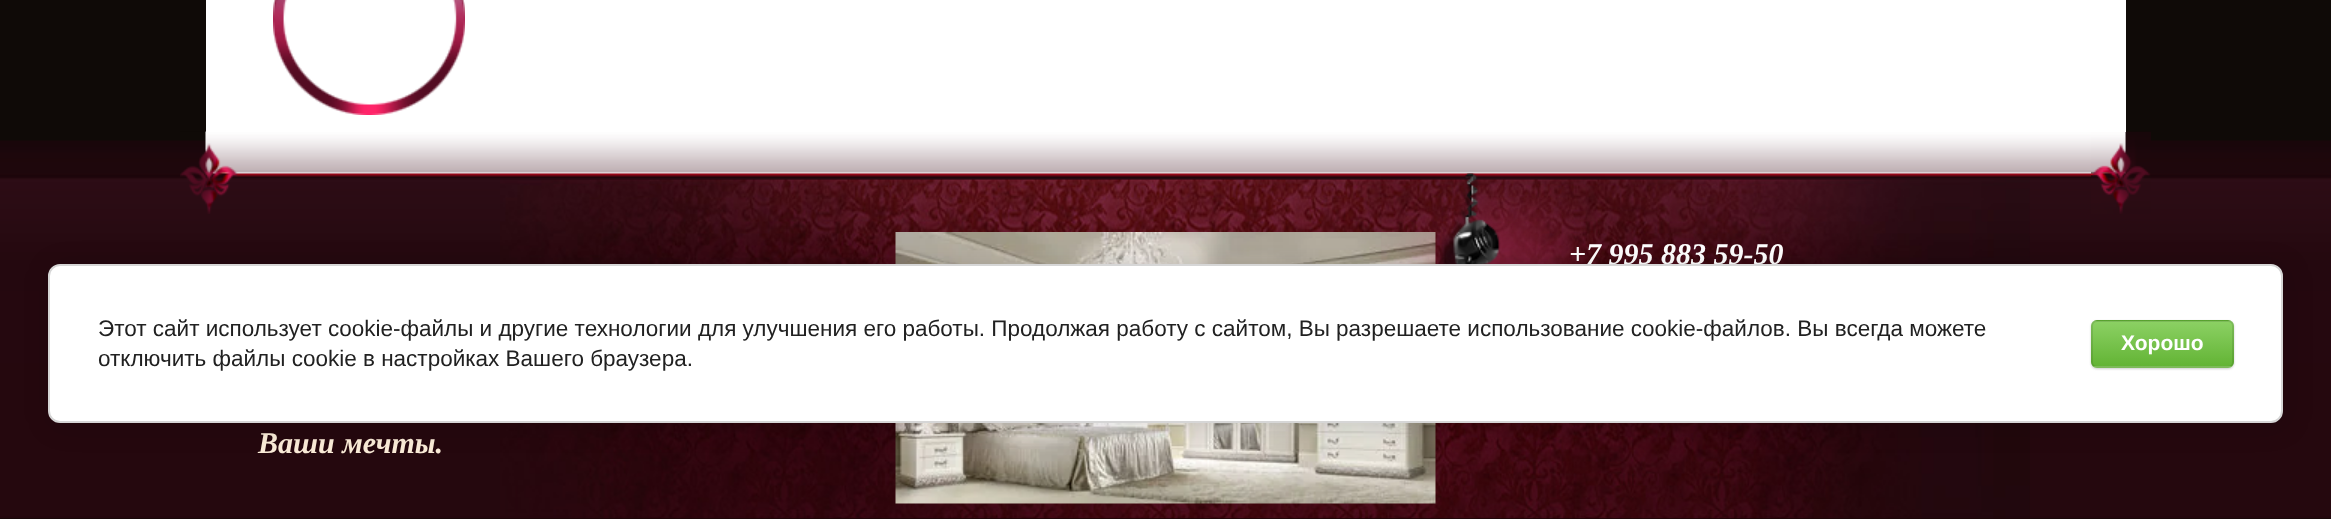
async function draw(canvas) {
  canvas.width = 2331;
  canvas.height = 519;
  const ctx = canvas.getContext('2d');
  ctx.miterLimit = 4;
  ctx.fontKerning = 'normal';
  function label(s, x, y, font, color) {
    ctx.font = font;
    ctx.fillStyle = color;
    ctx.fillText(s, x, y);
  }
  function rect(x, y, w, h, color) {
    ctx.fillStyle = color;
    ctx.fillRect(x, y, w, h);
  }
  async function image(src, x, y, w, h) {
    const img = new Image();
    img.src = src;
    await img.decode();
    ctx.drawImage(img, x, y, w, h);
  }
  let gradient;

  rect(0, 0, 2331, 519, '#0f0a07');
  await image('assets/img2.png', 0, 140, 2331, 379);
  await image('assets/img3.png', 500, 179, 1530, 340);
  await image('assets/img4.png', 205, 131, 1886, 49);
  await image('assets/img5.png', 180, 131, 60, 83);
  await image('assets/img6.png', 2091, 131, 60, 83);
  rect(206, 0, 1920, 132, '#fff');
  await image('assets/img1.png', 273, 0, 192, 115);
  await image('assets/img7.png', 895, 232, 541, 272);
  await image('assets/img8.png', 1381, 173, 224, 91);
  label('+7 995 883 59-50', 1569, 264, 'italic bold 30px Liberation Serif', '#fff');
  label('Ваши мечты.', 258, 453, 'italic bold 30px Liberation Serif', '#faebd7');
  ctx.fillStyle = '#00000024';
  ctx.filter = 'blur(13.5px)';
  ctx.beginPath();
  ctx.roundRect(51, 267, 2235, 159, 12);
  ctx.fill();
  ctx.filter = 'none';
  ctx.fillStyle = '#fff';
  ctx.beginPath();
  ctx.roundRect(49, 265, 2233, 157, 11);
  ctx.fill();
  ctx.strokeStyle = '#d6d6d6';
  ctx.lineWidth = 2;
  ctx.stroke();
  label('Этот сайт использует cookie-файлы и другие технологии для улучшения его работы. Продолжая работу с сайтом, Вы разрешаете использование cookie-файлов. Вы всегда можете', 98, 336, '22.5px Liberation Sans', '#212121');
  label('отключить файлы cookie в настройках Вашего браузера.', 98, 366, '22.5px Liberation Sans', '#212121');
  ctx.fillStyle = '#00000033';
  ctx.filter = 'blur(1px)';
  ctx.beginPath();
  ctx.roundRect(2091, 321, 143, 48, 6);
  ctx.fill();
  ctx.filter = 'none';
  ctx.save();
  ctx.beginPath();
  ctx.roundRect(2091, 320, 143, 48, 6);
  ctx.clip();
  gradient = ctx.createLinearGradient(2162, 276, 2162, 321);
  gradient.addColorStop(0, '#8cd164');
  gradient.addColorStop(1, '#63b435');
  ctx.fillStyle = gradient;
  ctx.fillRect(2091, 320, 143, 1);
  gradient = ctx.createLinearGradient(2162, 321, 2162, 366);
  gradient.addColorStop(0, '#8cd164');
  gradient.addColorStop(1, '#63b435');
  ctx.fillStyle = gradient;
  ctx.fillRect(2091, 321, 143, 45);
  gradient = ctx.createLinearGradient(2162, 366, 2162, 411);
  gradient.addColorStop(0, '#8cd164');
  gradient.addColorStop(1, '#63b435');
  ctx.fillStyle = gradient;
  ctx.fillRect(2091, 366, 143, 2);
  ctx.restore();
  ctx.beginPath();
  ctx.roundRect(2092, 321, 141, 46, 5);
  ctx.strokeStyle = '#0000001a';
  ctx.stroke();
  label('Хорошо', 2121, 350, 'bold 21px Liberation Sans', '#fff');
}

draw(document.querySelector('canvas'));
